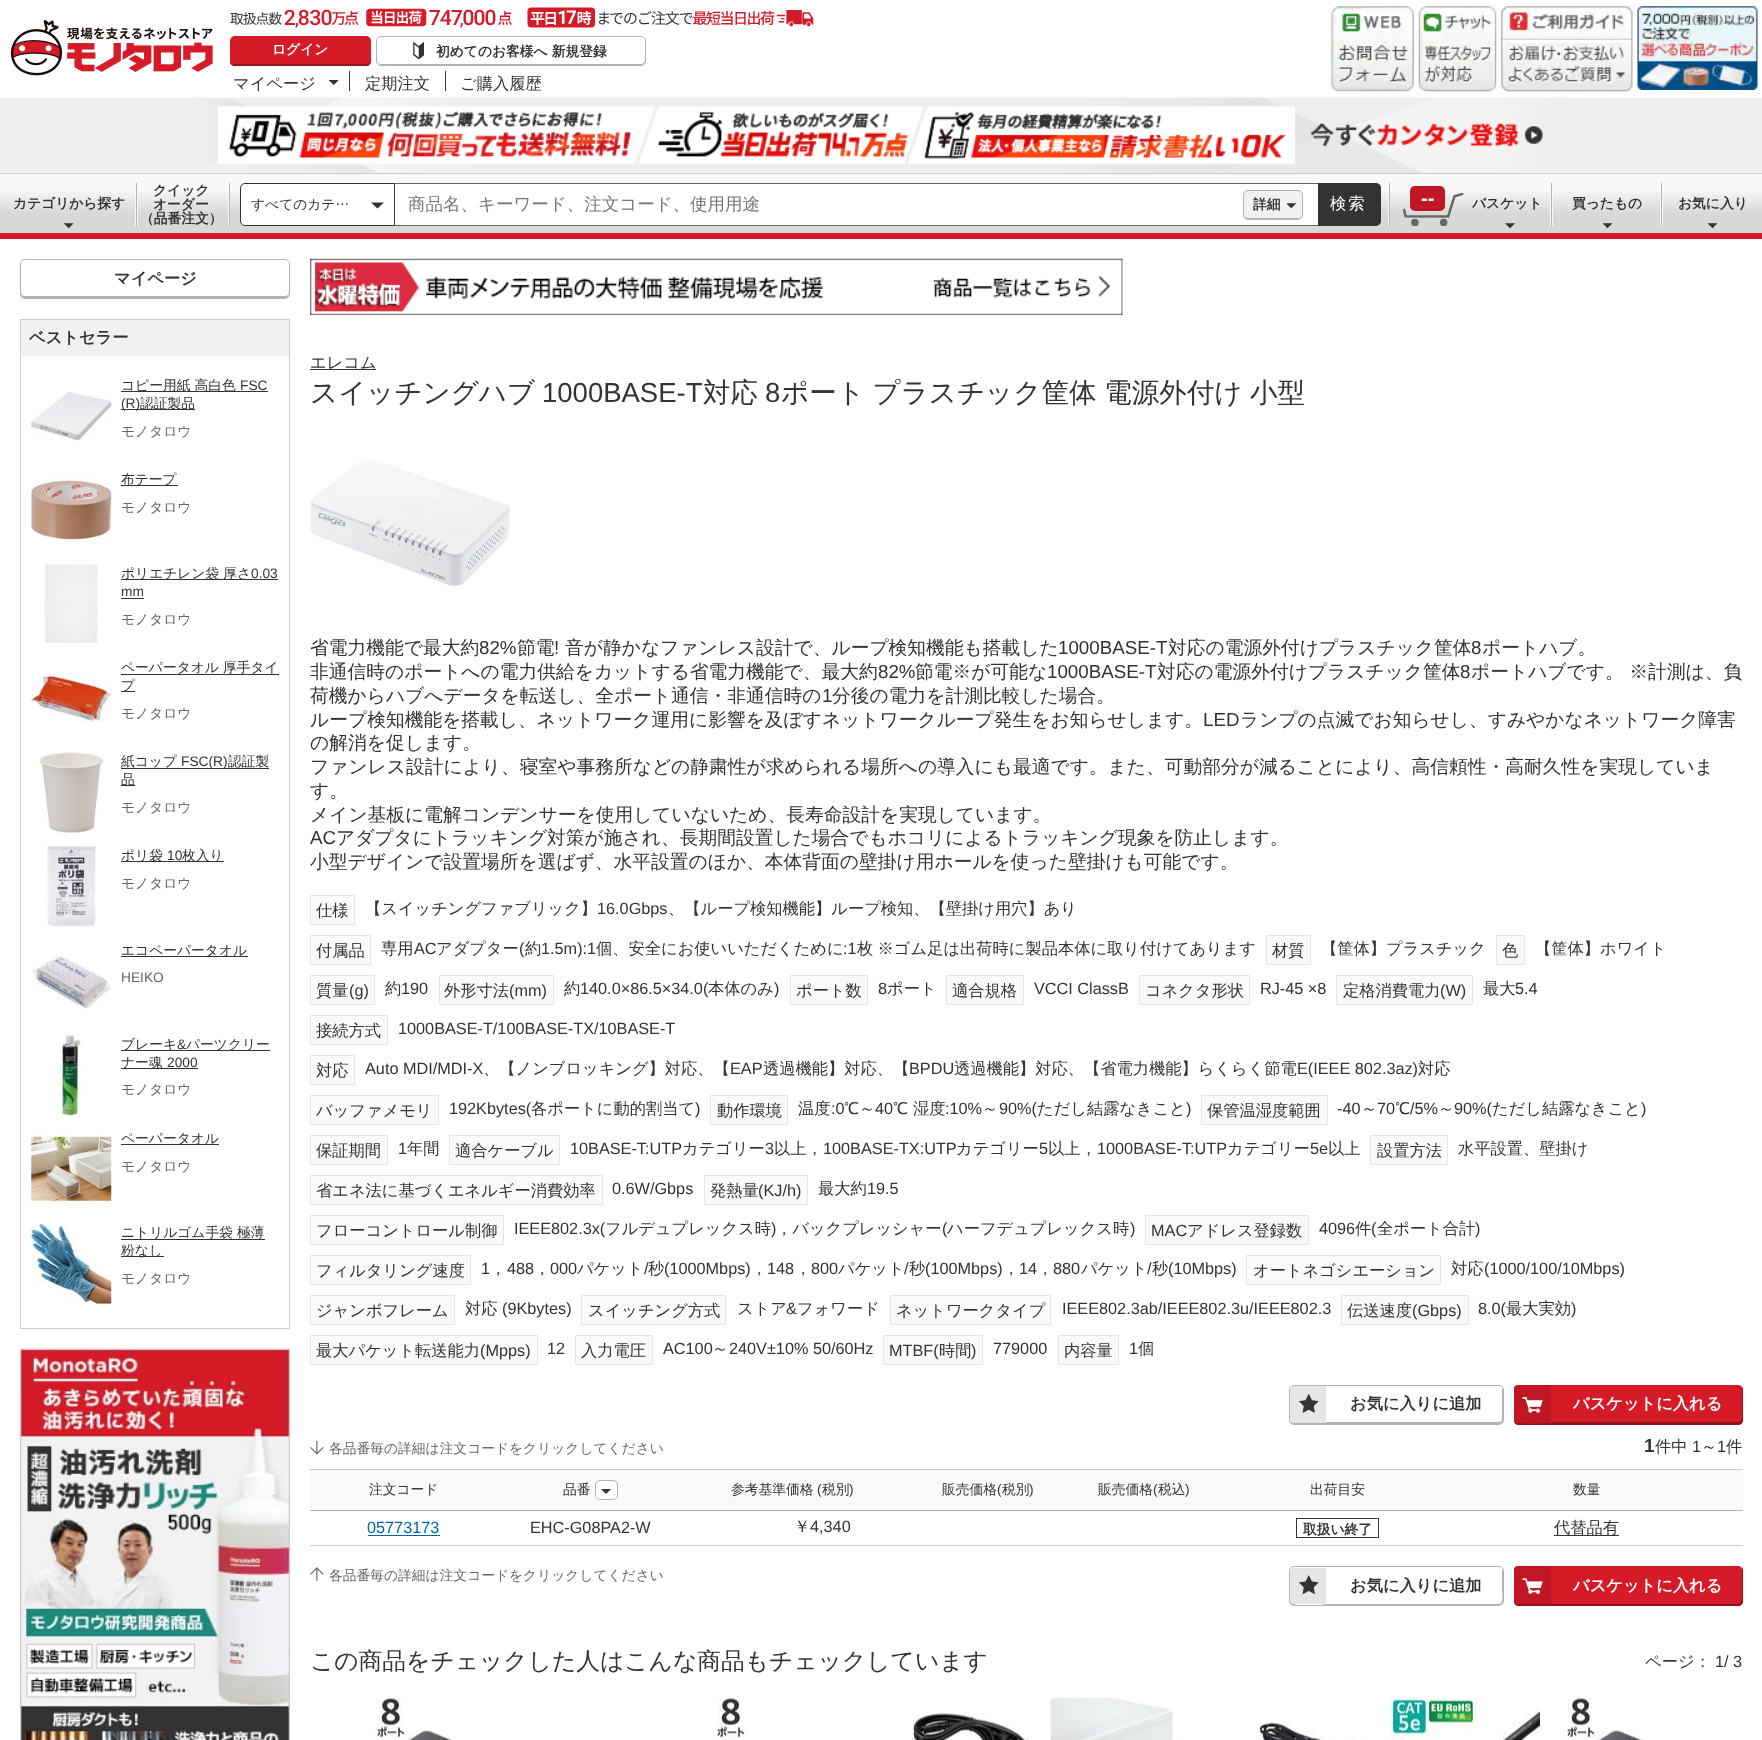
async function draw(canvas) {
  canvas.width = 1762;
  canvas.height = 1740;
  const ctx = canvas.getContext('2d');
  ctx.miterLimit = 4;
  ctx.fontKerning = 'normal';
  function label(s, x, y, font, color) {
    ctx.font = font;
    ctx.fillStyle = color;
    ctx.fillText(s, x, y);
  }
  function rect(x, y, w, h, color) {
    ctx.fillStyle = color;
    ctx.fillRect(x, y, w, h);
  }
  function roundedRect(x, y, w, h, r, color) {
    ctx.fillStyle = color;
    ctx.beginPath();
    ctx.roundRect(x, y, w, h, r);
    ctx.fill();
  }
  async function image(src, x, y, w, h) {
    const img = new Image();
    img.src = src;
    await img.decode();
    ctx.drawImage(img, x, y, w, h);
  }
  let gradient, path;

  rect(0, 0, 1762, 1740, '#fff');
  await image('assets/img1.png', 10, 20, 203, 56);
  await image('assets/img2.png', 230, 7, 584, 21);
  roundedRect(230, 36, 141, 30, 5, '#d51b28');
  ctx.fillStyle = '#95131c';
  path = new Path2D('M230 59V61C230 64 232 66 235 66H366C369 66 371 64 371 61V59C371 62 369 64 366 64H235C232 64 230 62 230 59Z');
  ctx.fill(path);
  label('ログイン', 272, 54, 'bold 13.75px WenQuanYi Zen Hei', '#fff');
  ctx.fillStyle = '#b3b3b3';
  path = new Path2D('M378 60C378 63 379 65 382 65H641C644 65 645 63 645 60C645 62 643 64 641 64H381C379 64 378 62 378 60Z');
  ctx.fill(path);
  ctx.beginPath();
  ctx.roundRect(376.5, 36.5, 269, 29, 4.5);
  ctx.strokeStyle = '#b3b3b3';
  ctx.stroke();
  await image('assets/img3.png', 413, 41, 11, 18);
  label('初めてのお客様へ 新規登録', 436, 56, 'bold 13.75px WenQuanYi Zen Hei', '#333');
  rect(349, 71, 1, 20, '#333');
  label('マイページ', 233, 89, '500 16.25px WenQuanYi Zen Hei', '#333');
  await image('assets/img4.png', 329, 80, 10, 5);
  rect(445, 71, 1, 20, '#333');
  label('定期注文', 365, 89, '500 16.25px WenQuanYi Zen Hei', '#333');
  label('ご購入履歴', 460, 89, '500 16.25px WenQuanYi Zen Hei', '#333');
  await image('assets/img5.png', 1331, 6, 83, 86);
  await image('assets/img6.png', 1418, 6, 79, 86);
  await image('assets/img7.png', 1501, 6, 132, 34);
  await image('assets/img8.png', 1501, 40, 132, 52);
  await image('assets/img9.png', 1637, 6, 121, 84);
  rect(0, 98, 1762, 75, '#eee');
  await image('assets/img10.png', 194, 97, 1375, 76);
  rect(0, 233, 1762, 6, '#d51b28');
  gradient = ctx.createLinearGradient(69, 174, 69, 233);
  gradient.addColorStop(0.26, '#f9f9f9');
  gradient.addColorStop(0.34, '#f1f1f1');
  gradient.addColorStop(0.68, '#d8d8d8');
  ctx.fillStyle = gradient;
  ctx.fillRect(0, 174, 138, 59);
  rect(0, 173, 1762, 1, '#ccc');
  label('カテゴリから探す', 13, 208, 'bold 13.75px WenQuanYi Zen Hei', '#333');
  rect(135, 183, 3, 43, '#fafafa');
  rect(136, 183, 1, 43, '#b3b3b3');
  await image('assets/img11.png', 64, 223, 10, 6);
  gradient = ctx.createLinearGradient(184, 174, 184, 233);
  gradient.addColorStop(0.26, '#f9f9f9');
  gradient.addColorStop(0.34, '#f1f1f1');
  gradient.addColorStop(0.68, '#d8d8d8');
  ctx.fillStyle = gradient;
  ctx.fillRect(138, 174, 92, 59);
  label('クイック', 153, 195, 'bold 13.75px WenQuanYi Zen Hei', '#333');
  label('オーダー', 153, 209, 'bold 13.75px WenQuanYi Zen Hei', '#333');
  rect(228, 183, 1, 43, '#fafafa');
  rect(229, 183, 1, 43, '#b3b3b3');
  label('（品番注文）', 140, 223, 'bold 13.75px WenQuanYi Zen Hei', '#333');
  gradient = ctx.createLinearGradient(810, 174, 810, 233);
  gradient.addColorStop(0.26, '#f9f9f9');
  gradient.addColorStop(0.34, '#f1f1f1');
  gradient.addColorStop(0.68, '#d8d8d8');
  ctx.fillStyle = gradient;
  ctx.fillRect(230, 174, 1160, 59);
  ctx.fillStyle = '#fff';
  ctx.beginPath();
  ctx.roundRect(240.5, 183.5, 154, 42, [4.5, 0, 0, 4.5]);
  ctx.fill();
  ctx.strokeStyle = '#333';
  ctx.stroke();
  label('すべてのカテ…', 251, 209, '500 13.75px WenQuanYi Zen Hei', '#333');
  path = new Path2D('M377.5 208.5L384 202.5H371Z');
  ctx.fill(path);
  rect(395, 184, 923, 41, '#fff');
  label('商品名、キーワード、注文コード、使用用途', 408, 210, '500 17.5px WenQuanYi Zen Hei', '#757575');
  rect(395, 183, 923, 1, '#666');
  rect(395, 225, 923, 1, '#666');
  roundedRect(1243, 190, 60, 30, 5, '#f1f1f1');
  ctx.fillStyle = '#b3b3b3';
  path = new Path2D('M1244 214C1244 221 1251 219 1256 219H1289C1294 219 1301 221 1301 214C1301 216 1300 218 1298 218H1248C1245 218 1244 216 1244 214Z');
  ctx.fill(path);
  ctx.beginPath();
  ctx.roundRect(1243.5, 190.5, 59, 29, 4.5);
  ctx.strokeStyle = '#b3b3b3';
  ctx.stroke();
  label('詳細', 1253, 209, 'bold 13.75px WenQuanYi Zen Hei', '#333');
  await image('assets/img12.png', 1286, 203, 10, 6);
  ctx.beginPath();
  ctx.roundRect(1318, 183, 63, 43, [0, 5, 5, 0]);
  ctx.fill();
  ctx.letterSpacing = '2px';
  label('検索', 1330, 209, '500 16.25px WenQuanYi Zen Hei', '#fff');
  rect(1388, 183, 1, 43, '#fafafa');
  rect(1389, 183, 1, 43, '#b3b3b3');
  gradient = ctx.createLinearGradient(1471, 174, 1471, 233);
  gradient.addColorStop(0.26, '#f9f9f9');
  gradient.addColorStop(0.34, '#f1f1f1');
  gradient.addColorStop(0.68, '#d8d8d8');
  ctx.fillStyle = gradient;
  ctx.fillRect(1390, 174, 163, 59);
  roundedRect(1410, 186, 35, 25, 5, '#bf1824');
  ctx.letterSpacing = '0px';
  label('--', 1421, 205, 'bold 20px Liberation Sans', '#fff');
  await image('assets/img13.png', 1403, 193, 61, 33);
  label('バスケット', 1472, 208, 'bold 13.75px WenQuanYi Zen Hei', '#333');
  rect(1550, 183, 3, 43, '#fafafa');
  rect(1551, 183, 1, 43, '#b3b3b3');
  await image('assets/img14.png', 1505, 223, 10, 6);
  gradient = ctx.createLinearGradient(1608, 174, 1608, 233);
  gradient.addColorStop(0.26, '#f9f9f9');
  gradient.addColorStop(0.34, '#f1f1f1');
  gradient.addColorStop(0.68, '#d8d8d8');
  ctx.fillStyle = gradient;
  ctx.fillRect(1553, 174, 110, 59);
  label('買ったもの', 1572, 208, 'bold 13.75px WenQuanYi Zen Hei', '#333');
  rect(1660, 183, 3, 43, '#fafafa');
  rect(1661, 183, 1, 43, '#b3b3b3');
  await image('assets/img15.png', 1603, 223, 10, 6);
  gradient = ctx.createLinearGradient(1713, 174, 1713, 233);
  gradient.addColorStop(0.26, '#f9f9f9');
  gradient.addColorStop(0.34, '#f1f1f1');
  gradient.addColorStop(0.68, '#d8d8d8');
  ctx.fillStyle = gradient;
  ctx.fillRect(1663, 174, 99, 59);
  label('お気に入り', 1678, 208, 'bold 13.75px WenQuanYi Zen Hei', '#333');
  await image('assets/img15.png', 1708, 223, 10, 6);
  ctx.fillStyle = '#b3b3b3';
  path = new Path2D('M21 292C21 295 21 298 25 298H286C289 297 289 295 289 292C289 295 287 296 285 296H25C23 296 21 295 21 292Z');
  ctx.fill(path);
  ctx.beginPath();
  ctx.roundRect(20.5, 259.5, 269, 39, 4.5);
  ctx.stroke();
  label('マイページ', 114, 284, 'bold 16.25px WenQuanYi Zen Hei', '#333');
  ctx.strokeStyle = '#ccc';
  ctx.strokeRect(20.5, 319.5, 269, 1009);
  rect(21, 320, 268, 36, '#f1f1f1');
  label('ベストセラー', 29, 343, 'bold 16.25px WenQuanYi Zen Hei', '#333');
  await image('assets/img16.png', 31, 392, 81, 49);
  rect(121, 391, 147, 1, '#333');
  label('コピー用紙 高白色', 121, 390, '500 13.75px WenQuanYi Zen Hei', '#333');
  label('FSC', 240, 390, '13.75px Liberation Sans', '#333');
  rect(121, 409, 74, 1, '#333');
  label('(R)', 121, 408, '13.75px Liberation Sans', '#333');
  label('認証製品', 140, 408, '500 13.75px WenQuanYi Zen Hei', '#333');
  label('モノタロウ', 121, 436, '500 13.75px WenQuanYi Zen Hei', '#666');
  await image('assets/img17.png', 31, 477, 81, 68);
  rect(121, 485, 57, 1, '#333');
  label('布テープ', 121, 484, '500 13.75px WenQuanYi Zen Hei', '#333');
  label('モノタロウ', 121, 512, '500 13.75px WenQuanYi Zen Hei', '#666');
  await image('assets/img18.png', 44, 564, 54, 79);
  rect(121, 579, 157, 1, '#333');
  label('ポリエチレン袋 厚さ', 121, 578, '500 13.75px WenQuanYi Zen Hei', '#333');
  label('0.03', 251, 578, '13.75px Liberation Sans', '#333');
  label('mm', 121, 596, '13.75px Liberation Sans', '#333');
  rect(121, 598, 23, 1, '#333');
  label('モノタロウ', 121, 624, '500 13.75px WenQuanYi Zen Hei', '#666');
  await image('assets/img19.png', 31, 671, 81, 52);
  label('ペーパータオル', 121, 672, '500 13.75px WenQuanYi Zen Hei', '#333');
  rect(121, 674, 158, 1, '#333');
  label('厚手タイ', 223, 672, '500 13.75px WenQuanYi Zen Hei', '#333');
  rect(121, 691, 14, 1, '#333');
  label('プ', 121, 690, '500 13.75px WenQuanYi Zen Hei', '#333');
  label('モノタロウ', 121, 718, '500 13.75px WenQuanYi Zen Hei', '#666');
  await image('assets/img20.png', 38, 752, 66, 81);
  label('紙コップ', 121, 766, '500 13.75px WenQuanYi Zen Hei', '#333');
  rect(121, 768, 148, 1, '#333');
  label('FSC(R)', 181, 766, '13.75px Liberation Sans', '#333');
  label('認証製', 228, 766, '500 13.75px WenQuanYi Zen Hei', '#333');
  rect(121, 785, 14, 1, '#333');
  label('品', 121, 784, '500 13.75px WenQuanYi Zen Hei', '#333');
  label('モノタロウ', 121, 812, '500 13.75px WenQuanYi Zen Hei', '#666');
  await image('assets/img21.png', 47, 846, 49, 81);
  rect(121, 861, 103, 1, '#333');
  label('ポリ袋', 121, 860, '500 13.75px WenQuanYi Zen Hei', '#333');
  label('10', 167, 860, '13.75px Liberation Sans', '#333');
  label('枚入り', 182, 860, '500 13.75px WenQuanYi Zen Hei', '#333');
  label('モノタロウ', 121, 888, '500 13.75px WenQuanYi Zen Hei', '#666');
  await image('assets/img22.png', 31, 954, 80, 57);
  rect(121, 956, 127, 1, '#333');
  label('エコペーパータオル', 121, 955, '500 13.75px WenQuanYi Zen Hei', '#333');
  label('HEIKO', 121, 982, '13.75px Liberation Sans', '#666');
  await image('assets/img23.png', 57, 1035, 26, 80);
  rect(121, 1050, 149, 1, '#333');
  label('ブレーキ', 121, 1049, '500 13.75px WenQuanYi Zen Hei', '#333');
  label('&', 177, 1049, '13.75px Liberation Sans', '#333');
  label('パーツクリー', 186, 1049, '500 13.75px WenQuanYi Zen Hei', '#333');
  rect(121, 1068, 77, 1, '#333');
  label('ナー魂', 121, 1067, '500 13.75px WenQuanYi Zen Hei', '#333');
  label('2000', 167, 1067, '13.75px Liberation Sans', '#333');
  label('モノタロウ', 121, 1094, '500 13.75px WenQuanYi Zen Hei', '#666');
  await image('assets/img24.png', 31, 1129, 81, 77);
  rect(121, 1144, 98, 1, '#333');
  label('ペーパータオル', 121, 1143, '500 13.75px WenQuanYi Zen Hei', '#333');
  label('モノタロウ', 121, 1171, '500 13.75px WenQuanYi Zen Hei', '#666');
  await image('assets/img25.png', 31, 1223, 81, 81);
  label('ニトリルゴム手袋 極薄', 121, 1237, '500 13.75px WenQuanYi Zen Hei', '#333');
  rect(121, 1239, 144, 1, '#333');
  rect(121, 1256, 43, 1, '#333');
  label('粉なし', 121, 1255, '500 13.75px WenQuanYi Zen Hei', '#333');
  label('モノタロウ', 121, 1283, '500 13.75px WenQuanYi Zen Hei', '#666');
  await image('assets/img26.png', 20, 1348, 270, 392);
  await image('assets/img27.png', 310, 258, 813, 57);
  label('エレコム', 310, 368, '500 16.25px WenQuanYi Zen Hei', '#333');
  rect(310, 369, 66, 1, '#333');
  label('スイッチングハブ', 310, 402, '500 27.5px WenQuanYi Zen Hei', '#333');
  label('1000BASE-T', 542, 402, '27.5px Liberation Sans', '#333');
  label('対応', 703, 402, '500 27.5px WenQuanYi Zen Hei', '#333');
  label('8', 765, 402, '27.5px Liberation Sans', '#333');
  ctx.wordSpacing = '-0.5px';
  label('ポート プラスチック筐体 電源外付け 小型', 781, 402, '500 27.5px WenQuanYi Zen Hei', '#333');
  await image('assets/img28.png', 310, 459, 200, 128);
  ctx.wordSpacing = '0px';
  label('省電力機能で最大約', 310, 654, '500 18.75px WenQuanYi Zen Hei', '#333');
  label('82%', 479, 654, '18.75px Liberation Sans', '#333');
  label('節電', 517, 654, '500 18.75px WenQuanYi Zen Hei', '#333');
  label('!', 554, 654, '18.75px Liberation Sans', '#333');
  label('音が静かなファンレス設計で、ループ検知機能も搭載した', 565, 654, '500 18.75px WenQuanYi Zen Hei', '#333');
  label('1000BASE-T', 1058, 654, '18.75px Liberation Sans', '#333');
  label('対応の電源外付けプラスチック筐体', 1168, 654, '500 18.75px WenQuanYi Zen Hei', '#333');
  label('8', 1471, 654, '18.75px Liberation Sans', '#333');
  label('ポートハブ。', 1482, 654, '500 18.75px WenQuanYi Zen Hei', '#333');
  label('非通信時のポートへの電力供給をカットする省電力機能で、最大約', 310, 678, '500 18.75px WenQuanYi Zen Hei', '#333');
  label('82%', 878, 678, '18.75px Liberation Sans', '#333');
  label('節電※が可能な', 915, 678, '500 18.75px WenQuanYi Zen Hei', '#333');
  label('1000BASE-T', 1047, 678, '18.75px Liberation Sans', '#333');
  label('対応の電源外付けプラスチック筐体', 1157, 678, '500 18.75px WenQuanYi Zen Hei', '#333');
  label('8', 1460, 678, '18.75px Liberation Sans', '#333');
  label('ポートハブです。 ※計測は、負', 1471, 678, '500 18.75px WenQuanYi Zen Hei', '#333');
  label('荷機からハブへデータを転送し、全ポート通信・非通信時の', 310, 702, '500 18.75px WenQuanYi Zen Hei', '#333');
  label('1', 822, 702, '18.75px Liberation Sans', '#333');
  label('分後の電力を計測比較した場合。', 832, 702, '500 18.75px WenQuanYi Zen Hei', '#333');
  label('ループ検知機能を搭載し、ネットワーク運用に影響を及ぼすネットワークループ発生をお知らせします。', 310, 726, '500 18.75px WenQuanYi Zen Hei', '#333');
  label('LED', 1203, 726, '18.75px Liberation Sans', '#333');
  label('ランプの点滅でお知らせし、すみやかなネットワーク障害', 1240, 726, '500 18.75px WenQuanYi Zen Hei', '#333');
  label('の解消を促します。', 310, 749, '500 18.75px WenQuanYi Zen Hei', '#333');
  label('ファンレス設計により、寝室や事務所などの静粛性が求められる場所への導入にも最適です。また、可動部分が減ることにより、高信頼性・高耐久性を実現していま', 310, 773, '500 18.75px WenQuanYi Zen Hei', '#333');
  label('す。', 310, 797, '500 18.75px WenQuanYi Zen Hei', '#333');
  label('メイン基板に電解コンデンサーを使用していないため、長寿命設計を実現しています。', 310, 821, '500 18.75px WenQuanYi Zen Hei', '#333');
  label('AC', 310, 844, '18.75px Liberation Sans', '#333');
  label('アダプタにトラッキング対策が施され、長期間設置した場合でもホコリによるトラッキング現象を防止します。', 336, 844, '500 18.75px WenQuanYi Zen Hei', '#333');
  label('小型デザインで設置場所を選ばず、水平設置のほか、本体背面の壁掛け用ホールを使った壁掛けも可能です。', 310, 868, '500 18.75px WenQuanYi Zen Hei', '#333');
  ctx.fillStyle = '#fafafa';
  ctx.beginPath();
  ctx.rect(310.5, 895.5, 44, 29);
  ctx.fill();
  ctx.strokeStyle = '#e6e6e6';
  ctx.stroke();
  label('仕様', 316, 916, '500 16.25px WenQuanYi Zen Hei', '#333');
  label('【スイッチングファブリック】', 365, 914, '500 16.25px WenQuanYi Zen Hei', '#333');
  label('16.0Gbps', 597, 914, '16.25px Liberation Sans', '#333');
  label('、【ループ検知機能】ループ検知、【壁掛け用穴】あり', 668, 914, '500 16.25px WenQuanYi Zen Hei', '#333');
  ctx.fillStyle = '#fafafa';
  ctx.beginPath();
  ctx.rect(310.5, 935.5, 60, 29);
  ctx.fill();
  ctx.stroke();
  label('付属品', 316, 956, '500 16.25px WenQuanYi Zen Hei', '#333');
  label('専用', 381, 954, '500 16.25px WenQuanYi Zen Hei', '#333');
  label('AC', 414, 954, '16.25px Liberation Sans', '#333');
  label('アダプター', 436, 954, '500 16.25px WenQuanYi Zen Hei', '#333');
  label('(', 519, 954, '16.25px Liberation Sans', '#333');
  label('約', 525, 954, '500 16.25px WenQuanYi Zen Hei', '#333');
  label('1.5m):1', 541, 954, '16.25px Liberation Sans', '#333');
  label('個、安全にお使いいただくために', 596, 954, '500 16.25px WenQuanYi Zen Hei', '#333');
  label(':1', 843, 954, '16.25px Liberation Sans', '#333');
  ctx.wordSpacing = '-0.5px';
  label('枚 ※ゴム足は出荷時に製品本体に取り付けてあります', 857, 954, '500 16.25px WenQuanYi Zen Hei', '#333');
  ctx.fillStyle = '#fafafa';
  ctx.beginPath();
  ctx.rect(1266.5, 935.5, 44, 29);
  ctx.fill();
  ctx.stroke();
  ctx.wordSpacing = '0px';
  label('材質', 1272, 956, '500 16.25px WenQuanYi Zen Hei', '#333');
  label('【筐体】プラスチック', 1321, 954, '500 16.25px WenQuanYi Zen Hei', '#333');
  ctx.fillStyle = '#fafafa';
  ctx.beginPath();
  ctx.rect(1496.5, 935.5, 28, 29);
  ctx.fill();
  ctx.stroke();
  label('色', 1502, 956, '500 16.25px WenQuanYi Zen Hei', '#333');
  label('【筐体】ホワイト', 1535, 954, '500 16.25px WenQuanYi Zen Hei', '#333');
  ctx.fillStyle = '#fafafa';
  ctx.beginPath();
  ctx.rect(310.5, 975.5, 64, 29);
  ctx.fill();
  ctx.stroke();
  label('質量', 316, 996, '500 16.25px WenQuanYi Zen Hei', '#333');
  label('(g)', 349, 996, '16.25px Liberation Sans', '#333');
  label('約', 385, 994, '500 16.25px WenQuanYi Zen Hei', '#333');
  label('190', 401, 994, '16.25px Liberation Sans', '#333');
  ctx.fillStyle = '#fafafa';
  ctx.beginPath();
  ctx.rect(439.5, 975.5, 114, 29);
  ctx.fill();
  ctx.stroke();
  label('外形寸法', 444, 996, '500 16.25px WenQuanYi Zen Hei', '#333');
  label('(mm)', 509, 996, '16.25px Liberation Sans', '#333');
  label('約', 564, 994, '500 16.25px WenQuanYi Zen Hei', '#333');
  label('140.0×86.5×34.0(', 580, 994, '16.25px Liberation Sans', '#333');
  label('本体のみ', 708, 994, '500 16.25px WenQuanYi Zen Hei', '#333');
  label(')', 774, 994, '16.25px Liberation Sans', '#333');
  ctx.fillStyle = '#fafafa';
  ctx.beginPath();
  ctx.rect(790.5, 975.5, 77, 29);
  ctx.fill();
  ctx.stroke();
  label('ポート数', 796, 996, '500 16.25px WenQuanYi Zen Hei', '#333');
  label('8', 878, 994, '16.25px Liberation Sans', '#333');
  label('ポート', 887, 994, '500 16.25px WenQuanYi Zen Hei', '#333');
  ctx.fillStyle = '#fafafa';
  ctx.beginPath();
  ctx.rect(946.5, 975.5, 77, 29);
  ctx.fill();
  ctx.stroke();
  label('適合規格', 952, 996, '500 16.25px WenQuanYi Zen Hei', '#333');
  label('VCCI ClassB', 1034, 994, '16.25px Liberation Sans', '#333');
  ctx.fillStyle = '#fafafa';
  ctx.beginPath();
  ctx.rect(1139.5, 975.5, 110, 29);
  ctx.fill();
  ctx.stroke();
  label('コネクタ形状', 1145, 996, '500 16.25px WenQuanYi Zen Hei', '#333');
  label('RJ-45 ×8', 1260, 994, '16.25px Liberation Sans', '#333');
  ctx.fillStyle = '#fafafa';
  ctx.beginPath();
  ctx.rect(1336.5, 975.5, 136, 29);
  ctx.fill();
  ctx.stroke();
  label('定格消費電力', 1343, 996, '500 16.25px WenQuanYi Zen Hei', '#333');
  label('(W)', 1440, 996, '16.25px Liberation Sans', '#333');
  label('最大', 1483, 994, '500 16.25px WenQuanYi Zen Hei', '#333');
  label('5.4', 1515, 994, '16.25px Liberation Sans', '#333');
  ctx.fillStyle = '#fafafa';
  ctx.beginPath();
  ctx.rect(310.5, 1015.5, 77, 29);
  ctx.fill();
  ctx.stroke();
  label('接続方式', 316, 1036, '500 16.25px WenQuanYi Zen Hei', '#333');
  label('1000BASE-T/100BASE-TX/10BASE-T', 398, 1034, '16.25px Liberation Sans', '#333');
  ctx.fillStyle = '#fafafa';
  ctx.beginPath();
  ctx.rect(310.5, 1055.5, 44, 29);
  ctx.fill();
  ctx.stroke();
  label('対応', 316, 1076, '500 16.25px WenQuanYi Zen Hei', '#333');
  label('Auto MDI/MDI-X', 365, 1074, '16.25px Liberation Sans', '#333');
  label('、【ノンブロッキング】対応、【', 483, 1074, '500 16.25px WenQuanYi Zen Hei', '#333');
  label('EAP', 730, 1074, '16.25px Liberation Sans', '#333');
  label('透過機能】対応、【', 763, 1074, '500 16.25px WenQuanYi Zen Hei', '#333');
  label('BPDU', 909, 1074, '16.25px Liberation Sans', '#333');
  label('透過機能】対応、【省電力機能】らくらく節電', 954, 1074, '500 16.25px WenQuanYi Zen Hei', '#333');
  label('E(IEEE 802.3az)', 1297, 1074, '16.25px Liberation Sans', '#333');
  label('対応', 1418, 1074, '500 16.25px WenQuanYi Zen Hei', '#333');
  ctx.fillStyle = '#fafafa';
  ctx.beginPath();
  ctx.rect(310.5, 1095.5, 128, 29);
  ctx.fill();
  ctx.stroke();
  label('バッファメモリ', 316, 1116, '500 16.25px WenQuanYi Zen Hei', '#333');
  label('192Kbytes(', 449, 1114, '16.25px Liberation Sans', '#333');
  label('各ポートに動的割当て', 531, 1114, '500 16.25px WenQuanYi Zen Hei', '#333');
  label(')', 695, 1114, '16.25px Liberation Sans', '#333');
  ctx.fillStyle = '#fafafa';
  ctx.beginPath();
  ctx.rect(710.5, 1095.5, 77, 29);
  ctx.fill();
  ctx.stroke();
  label('動作環境', 717, 1116, '500 16.25px WenQuanYi Zen Hei', '#333');
  label('温度', 798, 1114, '500 16.25px WenQuanYi Zen Hei', '#333');
  label(':0', 831, 1114, '16.25px Liberation Sans', '#333');
  label('℃～', 844, 1114, '500 16.25px WenQuanYi Zen Hei', '#333');
  label('40', 875, 1114, '16.25px Liberation Sans', '#333');
  label('℃', 893, 1114, '500 16.25px WenQuanYi Zen Hei', '#333');
  label('湿度', 913, 1114, '500 16.25px WenQuanYi Zen Hei', '#333');
  label(':10%', 945, 1114, '16.25px Liberation Sans', '#333');
  label('～', 982, 1114, '500 16.25px WenQuanYi Zen Hei', '#333');
  label('90%(', 999, 1114, '16.25px Liberation Sans', '#333');
  label('ただし結露なきこと', 1037, 1114, '500 16.25px WenQuanYi Zen Hei', '#333');
  label(')', 1186, 1114, '16.25px Liberation Sans', '#333');
  ctx.fillStyle = '#fafafa';
  ctx.beginPath();
  ctx.rect(1201.5, 1095.5, 126, 29);
  ctx.fill();
  ctx.stroke();
  label('保管温湿度範囲', 1207, 1116, '500 16.25px WenQuanYi Zen Hei', '#333');
  label('-40', 1337, 1114, '16.25px Liberation Sans', '#333');
  label('～', 1361, 1114, '500 16.25px WenQuanYi Zen Hei', '#333');
  label('70', 1377, 1114, '16.25px Liberation Sans', '#333');
  label('℃', 1395, 1114, '500 16.25px WenQuanYi Zen Hei', '#333');
  label('/5%', 1410, 1114, '16.25px Liberation Sans', '#333');
  label('～', 1438, 1114, '500 16.25px WenQuanYi Zen Hei', '#333');
  label('90%(', 1454, 1114, '16.25px Liberation Sans', '#333');
  label('ただし結露なきこと', 1492, 1114, '500 16.25px WenQuanYi Zen Hei', '#333');
  label(')', 1641, 1114, '16.25px Liberation Sans', '#333');
  ctx.fillStyle = '#fafafa';
  ctx.beginPath();
  ctx.rect(310.5, 1135.5, 77, 29);
  ctx.fill();
  ctx.stroke();
  label('保証期間', 316, 1156, '500 16.25px WenQuanYi Zen Hei', '#333');
  label('1', 398, 1154, '16.25px Liberation Sans', '#333');
  label('年間', 407, 1154, '500 16.25px WenQuanYi Zen Hei', '#333');
  ctx.fillStyle = '#fafafa';
  ctx.beginPath();
  ctx.rect(449.5, 1135.5, 110, 29);
  ctx.fill();
  ctx.stroke();
  label('適合ケーブル', 455, 1156, '500 16.25px WenQuanYi Zen Hei', '#333');
  label('10BASE-T:UTP', 570, 1154, '16.25px Liberation Sans', '#333');
  label('カテゴリー', 682, 1154, '500 16.25px WenQuanYi Zen Hei', '#333');
  label('3', 765, 1154, '16.25px Liberation Sans', '#333');
  label('以上，', 774, 1154, '500 16.25px WenQuanYi Zen Hei', '#333');
  label('100BASE-TX:UTP', 823, 1154, '16.25px Liberation Sans', '#333');
  label('カテゴリー', 956, 1154, '500 16.25px WenQuanYi Zen Hei', '#333');
  label('5', 1039, 1154, '16.25px Liberation Sans', '#333');
  label('以上，', 1048, 1154, '500 16.25px WenQuanYi Zen Hei', '#333');
  label('1000BASE-T:UTP', 1097, 1154, '16.25px Liberation Sans', '#333');
  label('カテゴリー', 1227, 1154, '500 16.25px WenQuanYi Zen Hei', '#333');
  label('5e', 1310, 1154, '16.25px Liberation Sans', '#333');
  label('以上', 1328, 1154, '500 16.25px WenQuanYi Zen Hei', '#333');
  ctx.fillStyle = '#fafafa';
  ctx.beginPath();
  ctx.rect(1370.5, 1135.5, 77, 29);
  ctx.fill();
  ctx.stroke();
  label('設置方法', 1377, 1156, '500 16.25px WenQuanYi Zen Hei', '#333');
  label('水平設置、壁掛け', 1458, 1154, '500 16.25px WenQuanYi Zen Hei', '#333');
  ctx.fillStyle = '#fafafa';
  ctx.beginPath();
  ctx.rect(310.5, 1175.5, 292, 29);
  ctx.fill();
  ctx.stroke();
  label('省エネ法に基づくエネルギー消費効率', 316, 1196, '500 16.25px WenQuanYi Zen Hei', '#333');
  label('0.6W/Gbps', 612, 1194, '16.25px Liberation Sans', '#333');
  ctx.fillStyle = '#fafafa';
  ctx.beginPath();
  ctx.rect(704.5, 1175.5, 103, 29);
  ctx.fill();
  ctx.stroke();
  label('発熱量', 710, 1196, '500 16.25px WenQuanYi Zen Hei', '#333');
  label('(KJ/h)', 758, 1196, '16.25px Liberation Sans', '#333');
  label('最大約', 818, 1194, '500 16.25px WenQuanYi Zen Hei', '#333');
  label('19.5', 867, 1194, '16.25px Liberation Sans', '#333');
  ctx.fillStyle = '#fafafa';
  ctx.beginPath();
  ctx.rect(310.5, 1215.5, 193, 29);
  ctx.fill();
  ctx.stroke();
  label('フローコントロール制御', 316, 1236, '500 16.25px WenQuanYi Zen Hei', '#333');
  label('IEEE802.3x(', 514, 1234, '16.25px Liberation Sans', '#333');
  label('フルデュプレックス時', 605, 1234, '500 16.25px WenQuanYi Zen Hei', '#333');
  label(')', 771, 1234, '16.25px Liberation Sans', '#333');
  label('，バックプレッシャー', 776, 1234, '500 16.25px WenQuanYi Zen Hei', '#333');
  label('(', 942, 1234, '16.25px Liberation Sans', '#333');
  label('ハーフデュプレックス時', 947, 1234, '500 16.25px WenQuanYi Zen Hei', '#333');
  label(')', 1130, 1234, '16.25px Liberation Sans', '#333');
  ctx.fillStyle = '#fafafa';
  ctx.beginPath();
  ctx.rect(1145.5, 1215.5, 163, 29);
  ctx.fill();
  ctx.stroke();
  label('MAC', 1151, 1236, '16.25px Liberation Sans', '#333');
  label('アドレス登録数', 1187, 1236, '500 16.25px WenQuanYi Zen Hei', '#333');
  label('4096', 1319, 1234, '16.25px Liberation Sans', '#333');
  label('件', 1355, 1234, '500 16.25px WenQuanYi Zen Hei', '#333');
  label('(', 1371, 1234, '16.25px Liberation Sans', '#333');
  label('全ポート合計', 1377, 1234, '500 16.25px WenQuanYi Zen Hei', '#333');
  label(')', 1475, 1234, '16.25px Liberation Sans', '#333');
  ctx.fillStyle = '#fafafa';
  ctx.beginPath();
  ctx.rect(310.5, 1255.5, 160, 29);
  ctx.fill();
  ctx.stroke();
  label('フィルタリング速度', 316, 1276, '500 16.25px WenQuanYi Zen Hei', '#333');
  label('1', 481, 1274, '16.25px Liberation Sans', '#333');
  label('，', 490, 1274, '500 16.25px WenQuanYi Zen Hei', '#333');
  label('488', 507, 1274, '16.25px Liberation Sans', '#333');
  label('，', 534, 1274, '500 16.25px WenQuanYi Zen Hei', '#333');
  label('000', 550, 1274, '16.25px Liberation Sans', '#333');
  label('パケット', 577, 1274, '500 16.25px WenQuanYi Zen Hei', '#333');
  label('/', 644, 1274, '16.25px Liberation Sans', '#333');
  label('秒', 648, 1274, '500 16.25px WenQuanYi Zen Hei', '#333');
  label('(1000Mbps)', 664, 1274, '16.25px Liberation Sans', '#333');
  label('，', 751, 1274, '500 16.25px WenQuanYi Zen Hei', '#333');
  label('148', 767, 1274, '16.25px Liberation Sans', '#333');
  label('，', 795, 1274, '500 16.25px WenQuanYi Zen Hei', '#333');
  label('800', 811, 1274, '16.25px Liberation Sans', '#333');
  label('パケット', 838, 1274, '500 16.25px WenQuanYi Zen Hei', '#333');
  label('/', 904, 1274, '16.25px Liberation Sans', '#333');
  label('秒', 909, 1274, '500 16.25px WenQuanYi Zen Hei', '#333');
  label('(100Mbps)', 925, 1274, '16.25px Liberation Sans', '#333');
  label('，', 1003, 1274, '500 16.25px WenQuanYi Zen Hei', '#333');
  label('14', 1019, 1274, '16.25px Liberation Sans', '#333');
  label('，', 1037, 1274, '500 16.25px WenQuanYi Zen Hei', '#333');
  label('880', 1053, 1274, '16.25px Liberation Sans', '#333');
  label('パケット', 1081, 1274, '500 16.25px WenQuanYi Zen Hei', '#333');
  label('/', 1147, 1274, '16.25px Liberation Sans', '#333');
  label('秒', 1152, 1274, '500 16.25px WenQuanYi Zen Hei', '#333');
  label('(10Mbps)', 1168, 1274, '16.25px Liberation Sans', '#333');
  ctx.fillStyle = '#fafafa';
  ctx.beginPath();
  ctx.rect(1246.5, 1255.5, 194, 29);
  ctx.fill();
  ctx.stroke();
  label('オートネゴシエーション', 1253, 1276, '500 16.25px WenQuanYi Zen Hei', '#333');
  label('対応', 1451, 1274, '500 16.25px WenQuanYi Zen Hei', '#333');
  label('(1000/100/10Mbps)', 1484, 1274, '16.25px Liberation Sans', '#333');
  ctx.fillStyle = '#fafafa';
  ctx.beginPath();
  ctx.rect(310.5, 1295.5, 144, 29);
  ctx.fill();
  ctx.stroke();
  label('ジャンボフレーム', 316, 1316, '500 16.25px WenQuanYi Zen Hei', '#333');
  label('対応', 465, 1314, '500 16.25px WenQuanYi Zen Hei', '#333');
  label('(9Kbytes)', 502, 1314, '16.25px Liberation Sans', '#333');
  ctx.fillStyle = '#fafafa';
  ctx.beginPath();
  ctx.rect(581.5, 1295.5, 144, 29);
  ctx.fill();
  ctx.stroke();
  label('スイッチング方式', 588, 1316, '500 16.25px WenQuanYi Zen Hei', '#333');
  label('ストア', 737, 1314, '500 16.25px WenQuanYi Zen Hei', '#333');
  label('&', 786, 1314, '16.25px Liberation Sans', '#333');
  label('フォワード', 797, 1314, '500 16.25px WenQuanYi Zen Hei', '#333');
  ctx.fillStyle = '#fafafa';
  ctx.beginPath();
  ctx.rect(890.5, 1295.5, 160, 29);
  ctx.fill();
  ctx.stroke();
  label('ネットワークタイプ', 896, 1316, '500 16.25px WenQuanYi Zen Hei', '#333');
  label('IEEE802.3ab/IEEE802.3u/IEEE802.3', 1062, 1314, '16.25px Liberation Sans', '#333');
  ctx.fillStyle = '#fafafa';
  ctx.beginPath();
  ctx.rect(1341.5, 1295.5, 127, 29);
  ctx.fill();
  ctx.stroke();
  label('伝送速度', 1347, 1316, '500 16.25px WenQuanYi Zen Hei', '#333');
  label('(Gbps)', 1412, 1316, '16.25px Liberation Sans', '#333');
  label('8.0(', 1478, 1314, '16.25px Liberation Sans', '#333');
  label('最大実効', 1506, 1314, '500 16.25px WenQuanYi Zen Hei', '#333');
  label(')', 1571, 1314, '16.25px Liberation Sans', '#333');
  ctx.fillStyle = '#fafafa';
  ctx.beginPath();
  ctx.rect(310.5, 1335.5, 227, 29);
  ctx.fill();
  ctx.stroke();
  label('最大パケット転送能力', 316, 1356, '500 16.25px WenQuanYi Zen Hei', '#333');
  label('(Mpps)', 480, 1356, '16.25px Liberation Sans', '#333');
  label('12', 547, 1354, '16.25px Liberation Sans', '#333');
  ctx.fillStyle = '#fafafa';
  ctx.beginPath();
  ctx.rect(575.5, 1335.5, 77, 29);
  ctx.fill();
  ctx.stroke();
  label('入力電圧', 581, 1356, '500 16.25px WenQuanYi Zen Hei', '#333');
  label('AC100', 663, 1354, '16.25px Liberation Sans', '#333');
  label('～', 712, 1354, '500 16.25px WenQuanYi Zen Hei', '#333');
  label('240V±10% 50/60Hz', 729, 1354, '16.25px Liberation Sans', '#333');
  ctx.fillStyle = '#fafafa';
  ctx.beginPath();
  ctx.rect(883.5, 1335.5, 99, 29);
  ctx.fill();
  ctx.stroke();
  label('MTBF(', 889, 1356, '16.25px Liberation Sans', '#333');
  label('時間', 939, 1356, '500 16.25px WenQuanYi Zen Hei', '#333');
  label(')', 971, 1356, '16.25px Liberation Sans', '#333');
  label('779000', 993, 1354, '16.25px Liberation Sans', '#333');
  ctx.fillStyle = '#fafafa';
  ctx.beginPath();
  ctx.rect(1058.5, 1335.5, 60, 29);
  ctx.fill();
  ctx.stroke();
  label('内容量', 1064, 1356, '500 16.25px WenQuanYi Zen Hei', '#333');
  label('1', 1129, 1354, '16.25px Liberation Sans', '#333');
  label('個', 1138, 1354, '500 16.25px WenQuanYi Zen Hei', '#333');
  ctx.fillStyle = '#b3b3b3';
  path = new Path2D('M1290 1419V1420C1290 1422 1292 1424 1294 1424H1499C1501 1424 1503 1422 1503 1420V1390C1503 1389 1502 1388 1502 1387V1419C1502 1421 1501 1422 1499 1422H1294C1292 1422 1290 1421 1290 1419Z');
  ctx.fill(path);
  ctx.beginPath();
  ctx.roundRect(1289.5, 1385.5, 214, 39, 4.5);
  ctx.strokeStyle = '#b3b3b3';
  ctx.stroke();
  ctx.fillStyle = '#e6e6e6';
  ctx.beginPath();
  ctx.roundRect(1290, 1386, 36, 37, [4, 0, 0, 4]);
  ctx.fill();
  await image('assets/img29.png', 1298, 1393, 21, 20);
  label('お気に入りに追加', 1350, 1409, 'bold 16.25px WenQuanYi Zen Hei', '#333');
  roundedRect(1514, 1385, 229, 40, 5, '#d51b28');
  ctx.fillStyle = '#95131c';
  path = new Path2D('M1514 1418V1420C1514 1423 1516 1425 1519 1425H1738C1741 1425 1743 1423 1743 1420V1390C1743 1389 1743 1388 1742 1387V1408C1742 1411 1744 1422 1738 1422H1556C1552 1422 1514 1427 1514 1418Z');
  ctx.fill(path);
  ctx.fillStyle = '#bf1824';
  ctx.beginPath();
  ctx.roundRect(1514, 1385, 37, 38, [4, 0, 0, 4]);
  ctx.fill();
  await image('assets/img30.png', 1522, 1397, 21, 16);
  label('バスケットに入れる', 1573, 1409, 'bold 16.25px WenQuanYi Zen Hei', '#fff');
  await image('assets/img31.png', 310, 1440, 14, 15);
  label('各品番毎の詳細は注文コードをクリックしてください', 329, 1453, '500 13.75px WenQuanYi Zen Hei', '#666');
  label('1', 1644, 1452, 'bold 18.75px Liberation Sans', '#333');
  label('件中', 1655, 1452, '500 16.25px WenQuanYi Zen Hei', '#333');
  label('1', 1692, 1452, '16.25px Liberation Sans', '#333');
  label('～', 1701, 1452, '500 16.25px WenQuanYi Zen Hei', '#333');
  label('1', 1717, 1452, '16.25px Liberation Sans', '#333');
  label('件', 1726, 1452, '500 16.25px WenQuanYi Zen Hei', '#333');
  rect(310, 1469, 1433, 1, '#ccc');
  rect(310, 1545, 1433, 1, '#ccc');
  rect(310, 1470, 1433, 40, '#fafafa');
  label('注文コード', 369, 1494, '500 13.75px WenQuanYi Zen Hei', '#333');
  label('品番', 563, 1494, '500 13.75px WenQuanYi Zen Hei', '#333');
  ctx.fillStyle = '#fff';
  ctx.beginPath();
  ctx.roundRect(595.5, 1480.5, 22, 19, 4.5);
  ctx.fill();
  ctx.stroke();
  ctx.fillStyle = '#333';
  path = new Path2D('M601 1489H611L606 1494Z');
  ctx.fill(path);
  label('参考基準価格', 731, 1494, '500 13.75px WenQuanYi Zen Hei', '#333');
  label('(', 817, 1494, '13.75px Liberation Sans', '#333');
  label('税別', 822, 1494, '500 13.75px WenQuanYi Zen Hei', '#333');
  label(')', 849, 1494, '13.75px Liberation Sans', '#333');
  label('販売価格', 942, 1494, '500 13.75px WenQuanYi Zen Hei', '#333');
  label('(', 997, 1494, '13.75px Liberation Sans', '#333');
  label('税別', 1002, 1494, '500 13.75px WenQuanYi Zen Hei', '#333');
  label(')', 1029, 1494, '13.75px Liberation Sans', '#333');
  label('販売価格', 1098, 1494, '500 13.75px WenQuanYi Zen Hei', '#333');
  label('(', 1153, 1494, '13.75px Liberation Sans', '#333');
  label('税込', 1158, 1494, '500 13.75px WenQuanYi Zen Hei', '#333');
  label(')', 1185, 1494, '13.75px Liberation Sans', '#333');
  label('出荷目安', 1310, 1494, '500 13.75px WenQuanYi Zen Hei', '#333');
  rect(310, 1510, 1433, 1, '#b3b3b3');
  label('数量', 1573, 1494, '500 13.75px WenQuanYi Zen Hei', '#333');
  label('05773173', 367, 1533, '16.25px Liberation Sans', '#0063aa');
  rect(368, 1535, 72, 1, '#0063aa');
  label('EHC-G08PA2-W', 530, 1533, '16.25px Liberation Sans', '#333');
  label('￥', 794, 1532, '500 16.25px WenQuanYi Zen Hei', '#333');
  label('4,340', 810, 1532, '16.25px Liberation Sans', '#333');
  ctx.strokeStyle = '#333';
  ctx.strokeRect(1296.5, 1518.5, 82, 19);
  label('取扱い終了', 1303, 1534, 'bold 13.75px WenQuanYi Zen Hei', '#333');
  rect(1554, 1535, 65, 1, '#333');
  label('代替品有', 1554, 1533, '500 16.25px WenQuanYi Zen Hei', '#333');
  await image('assets/img32.png', 310, 1567, 14, 14);
  label('各品番毎の詳細は注文コードをクリックしてください', 329, 1580, '500 13.75px WenQuanYi Zen Hei', '#666');
  ctx.fillStyle = '#b3b3b3';
  path = new Path2D('M1290 1600V1601C1290 1603 1292 1605 1294 1605H1499C1501 1605 1503 1603 1503 1601V1572C1503 1571 1503 1570 1502 1569V1590C1502 1592 1504 1604 1499 1604H1328C1328 1604 1290 1610 1290 1600Z');
  ctx.fill(path);
  ctx.beginPath();
  ctx.roundRect(1289.5, 1566.5, 214, 39, 4.5);
  ctx.strokeStyle = '#b3b3b3';
  ctx.stroke();
  ctx.fillStyle = '#e6e6e6';
  ctx.beginPath();
  ctx.roundRect(1290, 1568, 36, 36, [4, 0, 0, 4]);
  ctx.fill();
  await image('assets/img33.png', 1298, 1575, 21, 20);
  label('お気に入りに追加', 1350, 1591, 'bold 16.25px WenQuanYi Zen Hei', '#333');
  roundedRect(1514, 1566, 229, 40, 5, '#d51b28');
  ctx.fillStyle = '#95131c';
  path = new Path2D('M1514 1599V1601C1514 1604 1516 1606 1519 1606H1738C1741 1606 1743 1604 1743 1601V1571C1743 1570 1743 1569 1742 1568V1599C1742 1602 1740 1604 1738 1604H1519C1516 1604 1514 1602 1514 1599Z');
  ctx.fill(path);
  ctx.fillStyle = '#bf1824';
  ctx.beginPath();
  ctx.roundRect(1514, 1566, 37, 38, [4, 0, 0, 4]);
  ctx.fill();
  await image('assets/img34.png', 1522, 1578, 21, 16);
  label('バスケットに入れる', 1573, 1591, 'bold 16.25px WenQuanYi Zen Hei', '#fff');
  label('この商品をチェックした人はこんな商品もチェックしています', 310, 1669, '500 23.75px WenQuanYi Zen Hei', '#333');
  label('ページ：', 1645, 1667, '500 16.25px WenQuanYi Zen Hei', '#333');
  label('1/ 3', 1715, 1667, '16.25px Liberation Sans', '#333');
  await image('assets/img35.png', 371, 1698, 87, 42);
  await image('assets/img36.png', 711, 1698, 38, 40);
  await image('assets/img37.png', 912, 1713, 118, 27);
  await image('assets/img38.png', 1050, 1697, 128, 43);
  await image('assets/img39.png', 1258, 1721, 106, 19);
  await image('assets/img40.png', 1390, 1697, 150, 43);
  await image('assets/img35.png', 1561, 1698, 87, 42);
}

draw(document.querySelector('canvas'));
